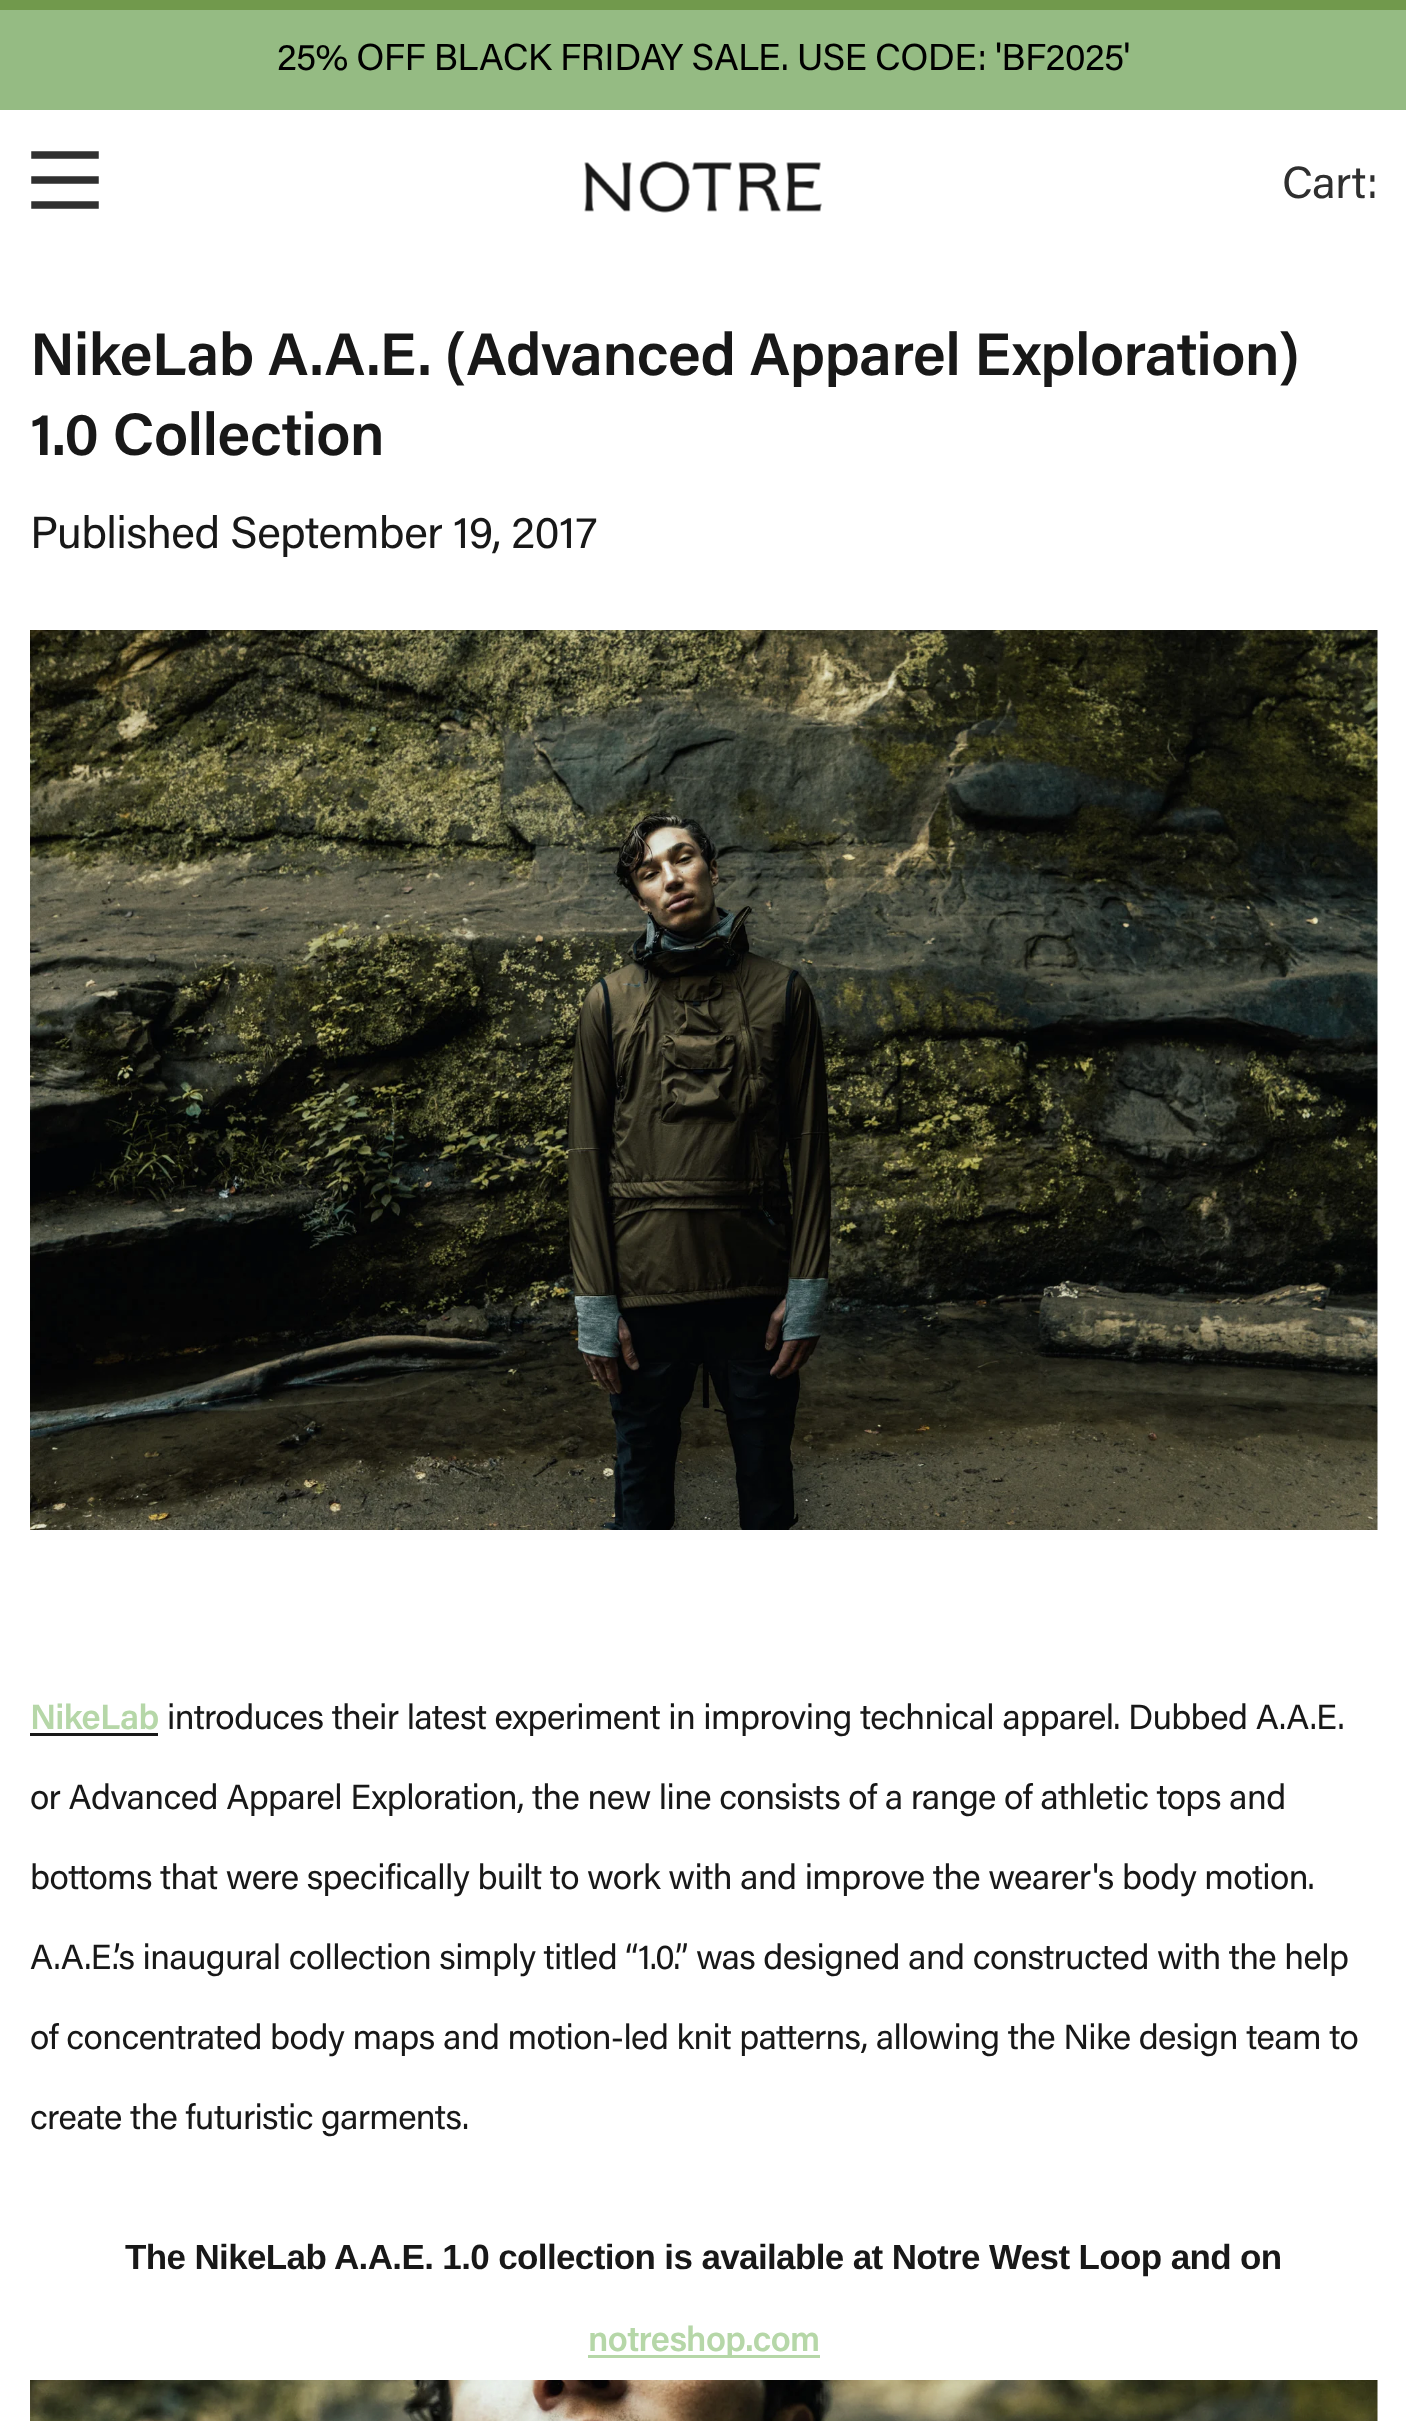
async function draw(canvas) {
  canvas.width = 1406;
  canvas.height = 2421;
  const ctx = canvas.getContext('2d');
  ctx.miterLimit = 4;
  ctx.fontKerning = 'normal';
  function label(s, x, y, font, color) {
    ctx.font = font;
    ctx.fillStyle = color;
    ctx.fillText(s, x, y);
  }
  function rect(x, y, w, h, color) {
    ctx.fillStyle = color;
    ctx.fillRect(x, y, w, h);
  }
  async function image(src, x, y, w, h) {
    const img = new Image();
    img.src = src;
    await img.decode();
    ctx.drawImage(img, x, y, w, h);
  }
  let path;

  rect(0, 0, 1406, 2421, '#fff');
  rect(0, 0, 1406, 10, '#71994c');
  rect(0, 10, 1406, 100, '#95bb83');
  ctx.letterSpacing = '-0.63px';
  label('25% OFF BLACK FRIDAY SALE. USE CODE: \'BF2025\'', 277, 70, '37.5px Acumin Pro', '#000');
  path = new Path2D('M35 155H95M35 180H95M35 205H95');
  ctx.strokeStyle = '#2f2f2f';
  ctx.lineWidth = 7.5;
  ctx.lineCap = 'square';
  ctx.stroke(path);
  await image('assets/img1.png', 584, 161, 238, 52);
  label('Cart:', 1282, 198, '45px Acumin Pro', '#2f2f2f');
  label('NikeLab A.A.E. (Advanced Apparel Exploration)', 30, 375, '600 60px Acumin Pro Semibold', '#181818');
  label('1.0 Collection', 30, 455, '600 60px Acumin Pro Semibold', '#181818');
  label('Published September 19, 2017', 30, 548, '45px Acumin Pro', '#181818');
  await image('assets/img2.png', 30, 630, 1348, 900);
  label('NikeLab', 30, 1729, '600 35px Acumin Pro Semibold', '#b6d7a8');
  rect(30, 1733, 128, 3, '#181818');
  label('introduces their latest experiment in improving technical apparel. Dubbed A.A.E.', 167, 1729, '35px Acumin Pro', '#181818');
  label('or Advanced Apparel Exploration, the new line consists of a range of athletic tops and', 30, 1809, '35px Acumin Pro', '#181818');
  label('bottoms that were specifically built to work with and improve the wearer\'s body motion.', 30, 1889, '35px Acumin Pro', '#181818');
  label('A.A.E.’s inaugural collection simply titled “1.0.” was designed and constructed with the help', 30, 1969, '35px Acumin Pro', '#181818');
  label('of concentrated body maps and motion-led knit patterns, allowing the Nike design team to', 30, 2049, '35px Acumin Pro', '#181818');
  label('create the futuristic garments.', 30, 2129, '35px Acumin Pro', '#181818');
  label('The NikeLab A.A.E. 1.0 collection is available at Notre West Loop and on', 125, 2269, 'bold 35px Liberation Sans', '#181818');
  rect(588, 2355, 232, 3, '#b6d7a8');
  label('notreshop.com', 588, 2351, '600 35px Acumin Pro Semibold', '#b6d7a8');
  await image('assets/img3.png', 30, 2380, 1348, 41);
}

draw(document.querySelector('canvas'));
